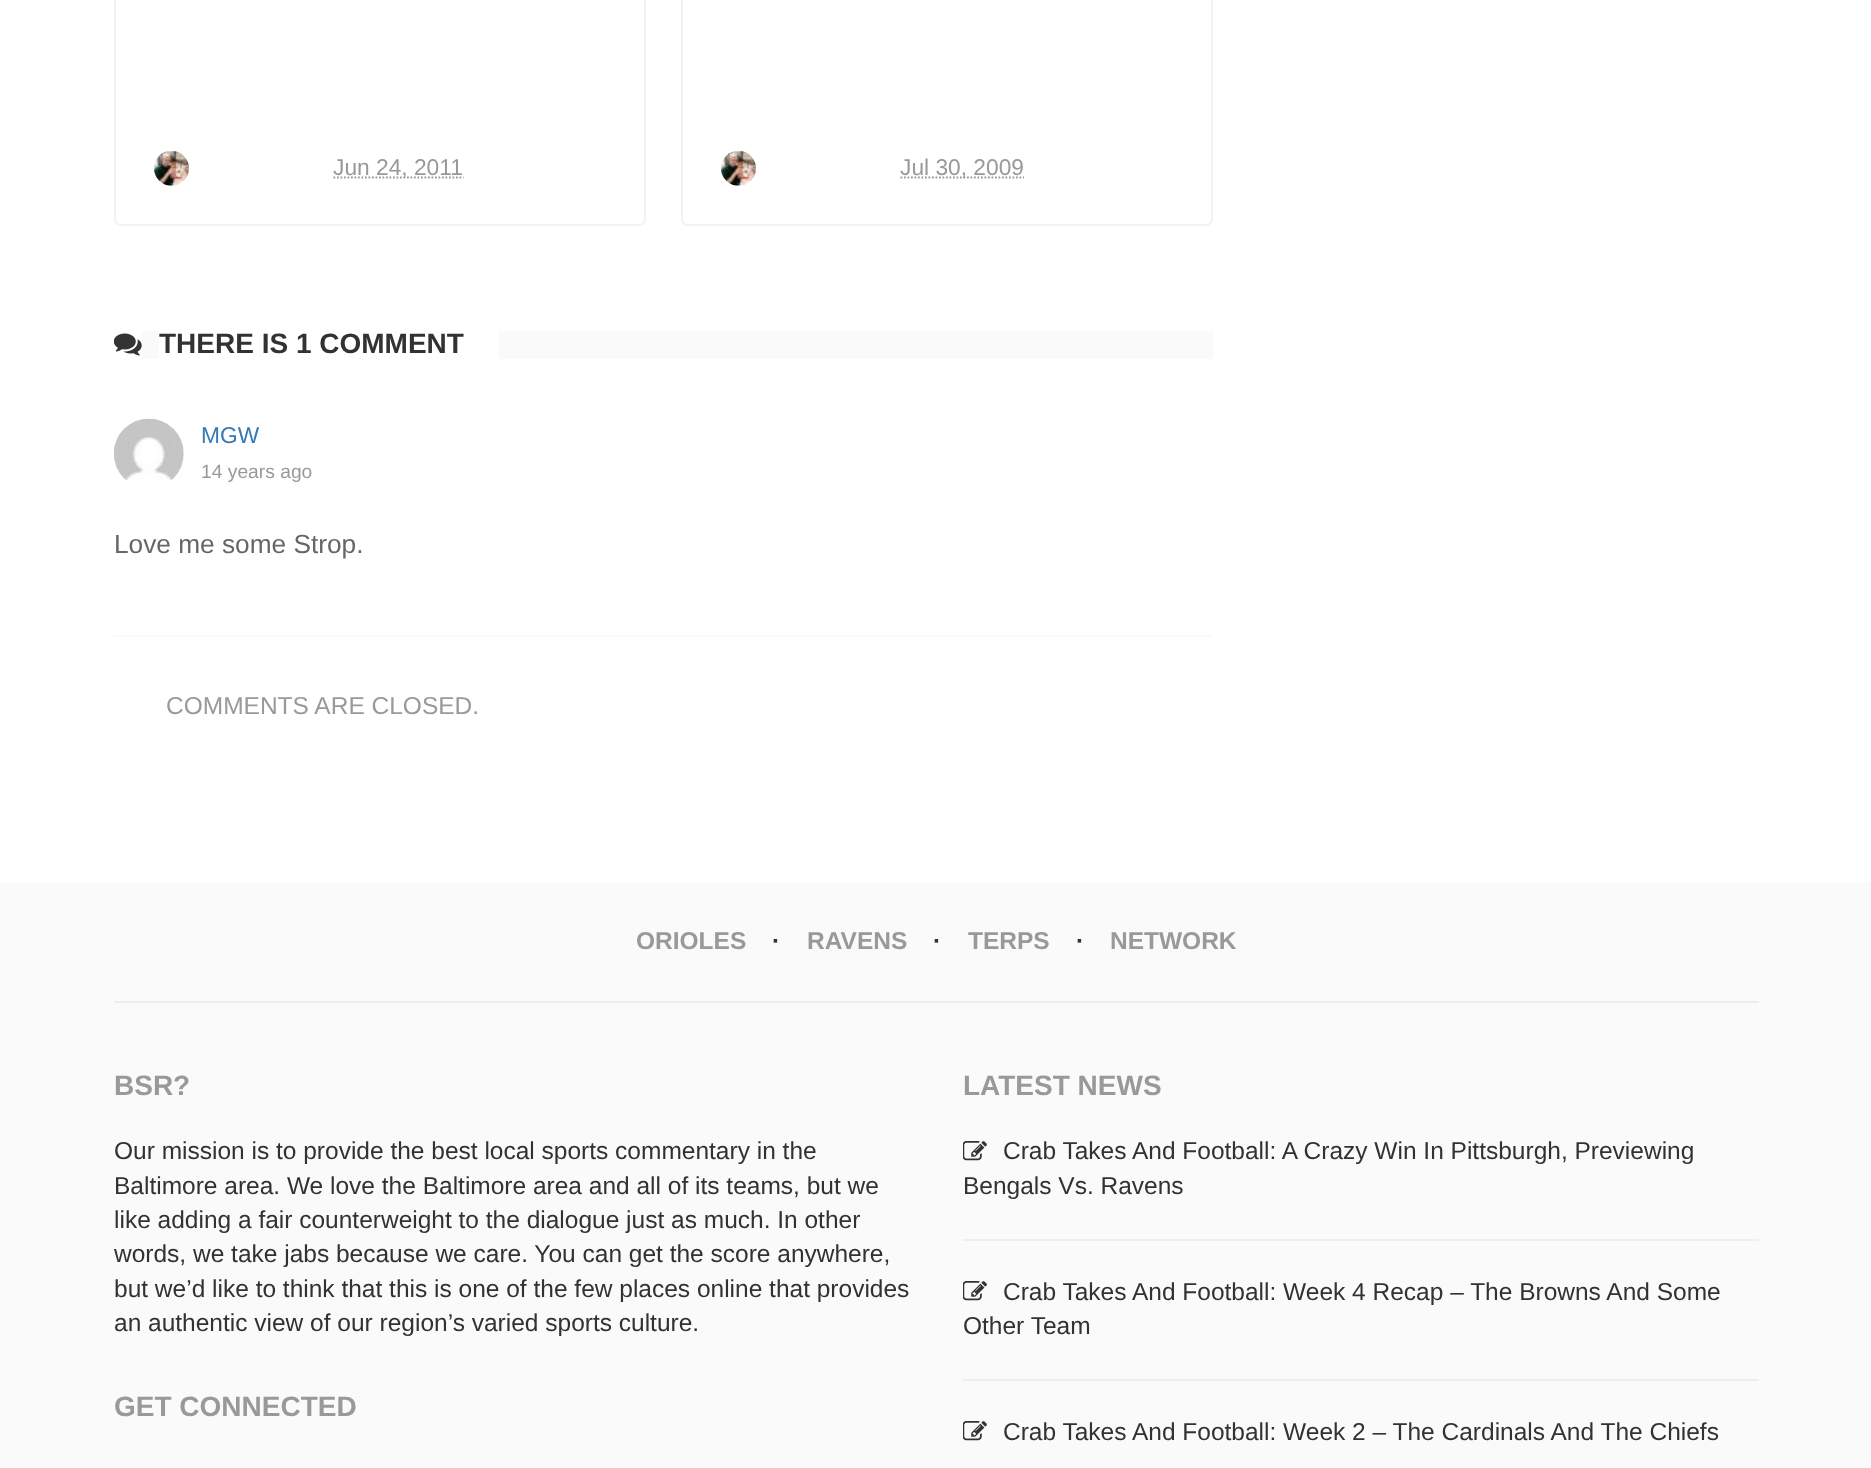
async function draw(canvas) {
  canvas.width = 1871;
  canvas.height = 1468;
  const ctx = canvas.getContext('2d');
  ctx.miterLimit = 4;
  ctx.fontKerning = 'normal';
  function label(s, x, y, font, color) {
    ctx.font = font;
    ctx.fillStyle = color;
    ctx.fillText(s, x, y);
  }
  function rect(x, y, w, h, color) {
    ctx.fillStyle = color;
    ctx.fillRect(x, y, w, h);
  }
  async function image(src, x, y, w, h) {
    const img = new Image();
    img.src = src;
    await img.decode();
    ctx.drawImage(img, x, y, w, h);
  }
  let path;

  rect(0, 0, 1871, 1468, '#fff');
  ctx.beginPath();
  ctx.roundRect(115, -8, 530, 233, 6);
  ctx.strokeStyle = '#f2f2f2';
  ctx.lineWidth = 2;
  ctx.stroke();
  await image('assets/img1.png', 154, 151, 35, 35);
  path = new Path2D('M333.5 177.5H463.5');
  ctx.strokeStyle = '#999';
  ctx.lineWidth = 1.8;
  ctx.setLineDash([1.75, 1.75]);
  ctx.stroke(path);
  label('Jun 24, 2011', 333, 175, '22.75px Liberation Sans', '#999');
  ctx.beginPath();
  ctx.roundRect(682, -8, 530, 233, 6);
  ctx.strokeStyle = '#f2f2f2';
  ctx.lineWidth = 2;
  ctx.setLineDash([]);
  ctx.stroke();
  await image('assets/img2.png', 721, 151, 35, 35);
  ctx.save();
  ctx.beginPath();
  ctx.rect(777, 147, 247, 42);
  ctx.clip();
  path = new Path2D('M900.5 177.5H1024.5');
  ctx.strokeStyle = '#999';
  ctx.lineWidth = 1.8;
  ctx.setLineDash([1.75, 1.75]);
  ctx.stroke(path);
  ctx.restore();
  label('Jul 30, 2009', 900, 175, '22.75px Liberation Sans', '#999');
  rect(142, 331, 1071, 28, '#fafafa');
  rect(159, 331, 340, 28, '#fff');
  await image('assets/img3.png', 114, 333, 28, 23);
  label('THERE IS 1 COMMENT', 159, 353, 'bold 28px Liberation Sans', '#323232');
  await image('assets/img4.png', 114, 418, 70, 63);
  label('MGW', 201, 443, '22.75px Liberation Sans', '#337ab7');
  label('14 years ago', 201, 478, '19.25px Liberation Sans', '#999');
  label('Love me some Strop.', 114, 553, '26.25px Liberation Sans', '#666');
  rect(114, 635, 1099, 2, '#fafafa');
  label('COMMENTS ARE CLOSED.', 166, 714, '24.5px Liberation Sans', '#999');
  rect(0, 882, 1871, 586, '#fafafa');
  rect(114, 1001, 1645, 2, '#eee');
  label('ORIOLES', 636, 949, 'bold 24.5px Liberation Sans', '#999');
  label('·', 772, 949, 'bold 24.5px Liberation Sans', '#323232');
  label('RAVENS', 807, 949, 'bold 24.5px Liberation Sans', '#999');
  label('·', 933, 949, 'bold 24.5px Liberation Sans', '#323232');
  label('TERPS', 968, 949, 'bold 24.5px Liberation Sans', '#999');
  label('·', 1076, 949, 'bold 24.5px Liberation Sans', '#323232');
  label('NETWORK', 1110, 949, 'bold 24.5px Liberation Sans', '#999');
  label('BSR?', 114, 1095, 'bold 28px Liberation Sans', '#999');
  label('Our mission is to provide the best local sports commentary in the', 114, 1159, '24.5px Liberation Sans', '#323232');
  label('Baltimore area. We love the Baltimore area and all of its teams, but we', 114, 1194, '24.5px Liberation Sans', '#323232');
  label('like adding a fair counterweight to the dialogue just as much. In other', 114, 1228, '24.5px Liberation Sans', '#323232');
  label('words, we take jabs because we care. You can get the score anywhere,', 114, 1262, '24.5px Liberation Sans', '#323232');
  label('but we’d like to think that this is one of the few places online that provides', 114, 1297, '24.5px Liberation Sans', '#323232');
  label('an authentic view of our region’s varied sports culture.', 114, 1331, '24.5px Liberation Sans', '#323232');
  label('GET CONNECTED', 114, 1416, 'bold 28px Liberation Sans', '#999');
  label('LATEST NEWS', 963, 1095, 'bold 28px Liberation Sans', '#999');
  await image('assets/img5.png', 963, 1141, 24, 20);
  label('Crab Takes And Football: A Crazy Win In Pittsburgh, Previewing', 1003, 1159, '24.5px Liberation Sans', '#323232');
  label('Bengals Vs. Ravens', 963, 1194, '24.5px Liberation Sans', '#323232');
  rect(963, 1239, 796, 2, '#eee');
  await image('assets/img5.png', 963, 1281, 24, 20);
  label('Crab Takes And Football: Week 4 Recap – The Browns And Some', 1003, 1300, '24.5px Liberation Sans', '#323232');
  label('Other Team', 963, 1334, '24.5px Liberation Sans', '#323232');
  rect(963, 1379, 796, 2, '#eee');
  await image('assets/img5.png', 963, 1421, 24, 20);
  label('Crab Takes And Football: Week 2 – The Cardinals And The Chiefs', 1003, 1440, '24.5px Liberation Sans', '#323232');
}

draw(document.querySelector('canvas'));
